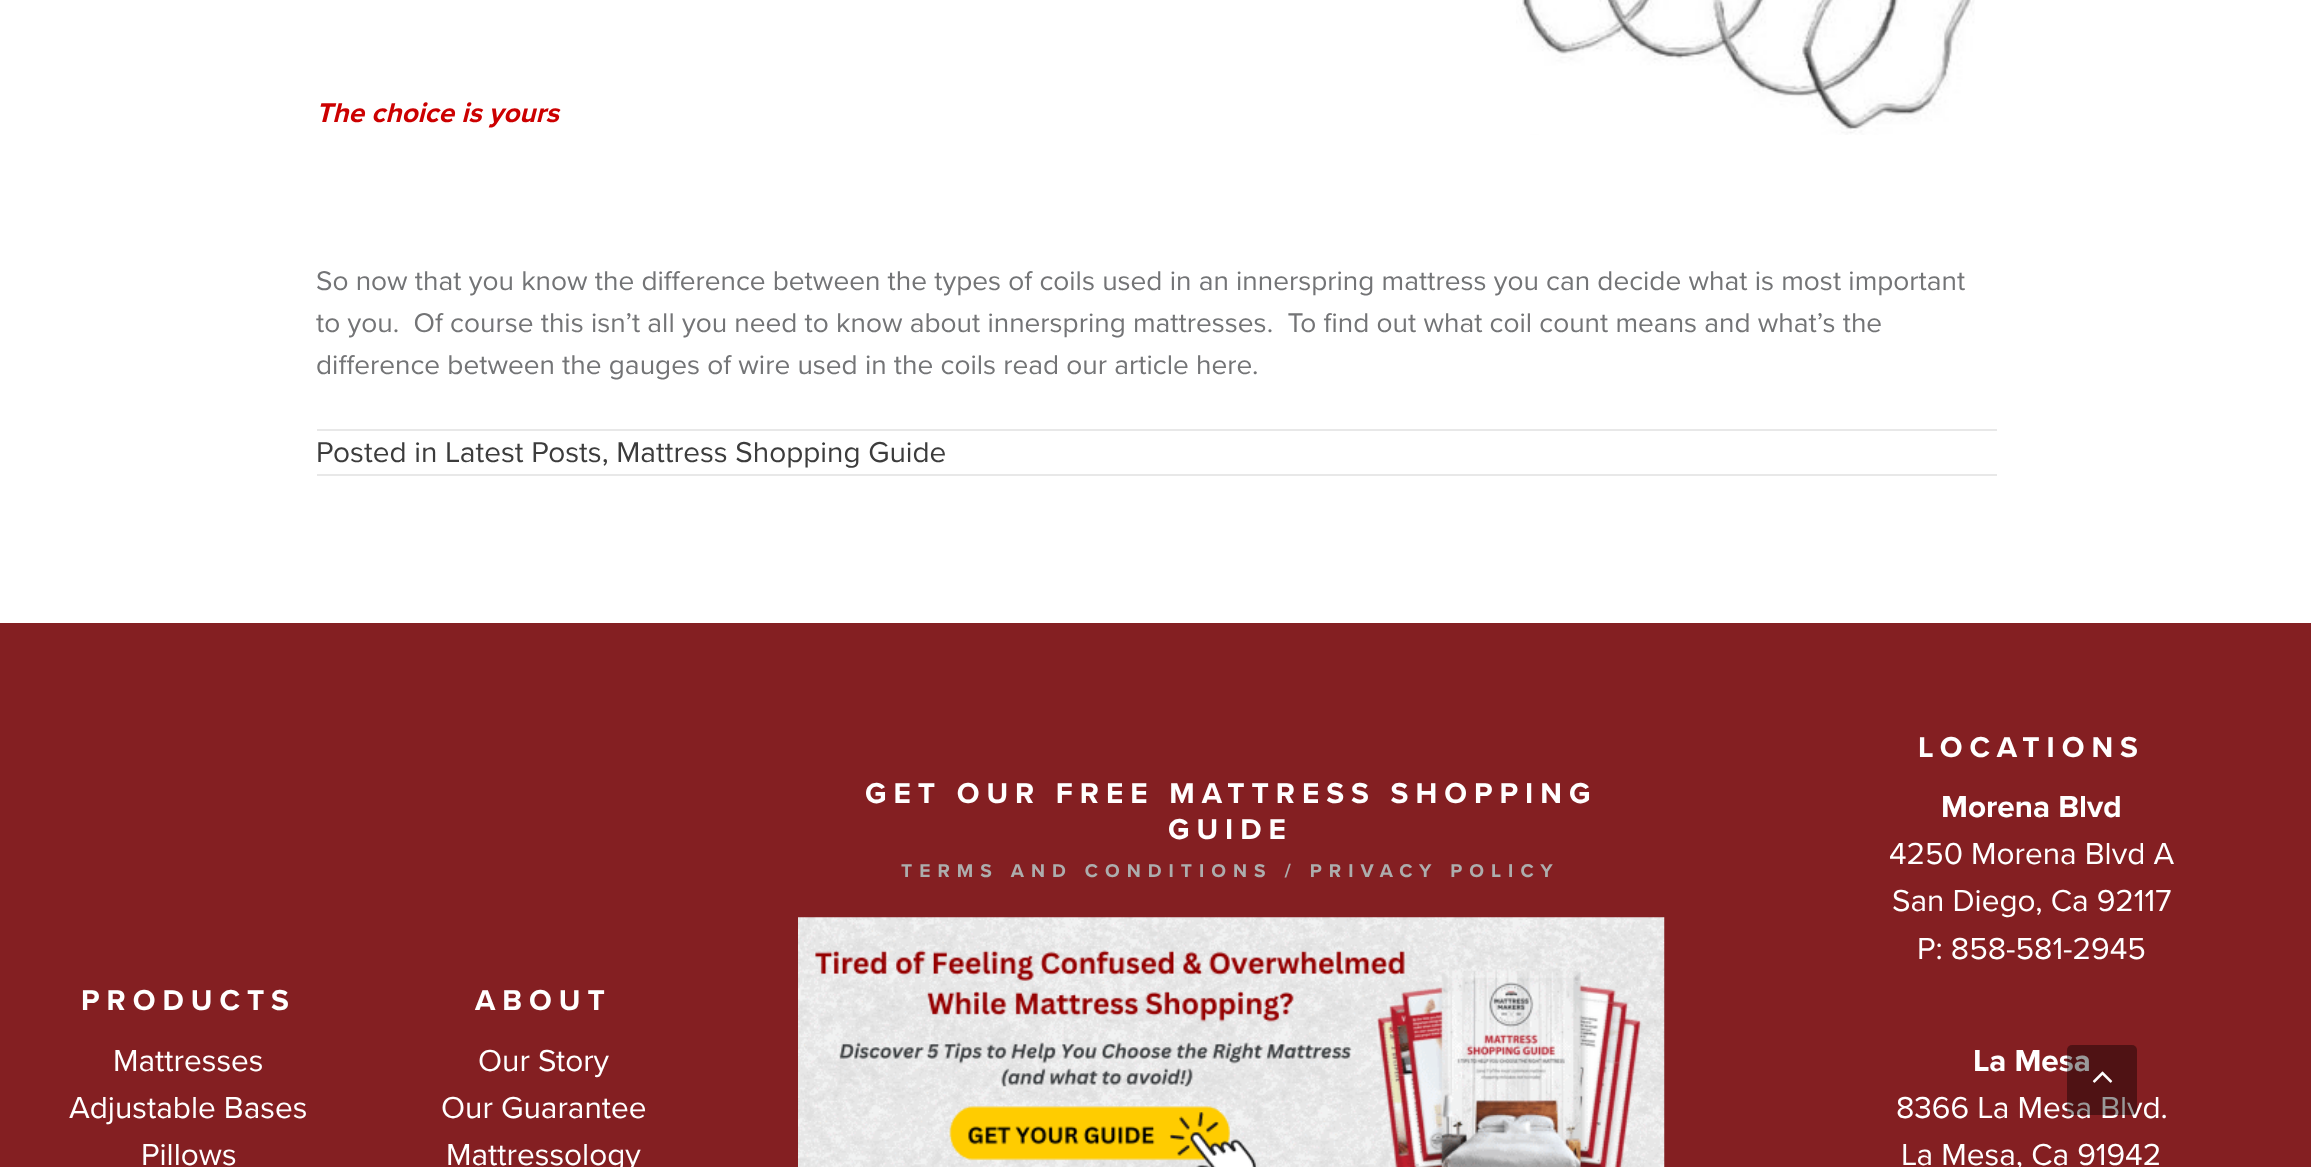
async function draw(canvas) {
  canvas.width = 2311;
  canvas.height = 1167;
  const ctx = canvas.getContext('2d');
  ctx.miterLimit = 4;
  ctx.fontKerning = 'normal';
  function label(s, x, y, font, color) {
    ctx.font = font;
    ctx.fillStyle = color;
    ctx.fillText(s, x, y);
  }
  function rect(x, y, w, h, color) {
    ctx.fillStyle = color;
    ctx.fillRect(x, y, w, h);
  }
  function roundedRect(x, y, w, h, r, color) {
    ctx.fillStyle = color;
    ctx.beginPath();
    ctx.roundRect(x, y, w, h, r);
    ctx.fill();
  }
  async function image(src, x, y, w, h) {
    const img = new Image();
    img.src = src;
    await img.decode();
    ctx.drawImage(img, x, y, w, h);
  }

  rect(0, 0, 2311, 1167, '#fff');
  label('The choice is yours', 316, 122, 'italic bold 28px Proxima Nova', '#c00');
  await image('assets/img1.png', 1516, 0, 459, 135);
  label('So now that you know the difference between the types of coils used in an innerspring mattress you can decide what is most important', 316, 290, '28px Proxima Nova', '#737476');
  label('to you.  Of course this isn’t all you need to know about innerspring mattresses.  To find out what coil count means and what’s the', 316, 332, '28px Proxima Nova', '#737476');
  label('difference between the gauges of wire used in the coils read our article here.', 316, 374, '28px Proxima Nova', '#737476');
  rect(317, 429, 1680, 2, '#e8e8e8');
  label('Posted in Latest Posts, Mattress Shopping Guide', 316, 462, '29.75px Proxima Nova', '#3c3c3c');
  rect(317, 474, 1680, 2, '#e8e8e8');
  rect(0, 623, 2311, 544, '#841f22');
  ctx.letterSpacing = '7px';
  label('GET OUR FREE MATTRESS SHOPPING', 865, 803, 'bold 29.75px Proxima Nova', '#fff');
  label('GUIDE', 1168, 839, 'bold 29.75px Proxima Nova', '#fff');
  label('TERMS AND CONDITIONS / PRIVACY POLICY', 901, 877, 'bold 19.25px Proxima Nova', '#adadad');
  await image('assets/img2.png', 798, 917, 867, 250);
  label('LOCATIONS', 1918, 757, 'bold 29.75px Proxima Nova', '#fff');
  ctx.letterSpacing = '0px';
  label('Morena Blvd', 1941, 817, 'bold 31.5px Proxima Nova', '#fff');
  label('4250 Morena Blvd A', 1889, 864, '31.5px Proxima Nova', '#fff');
  label('San Diego, Ca 92117', 1892, 911, '31.5px Proxima Nova', '#fff');
  label('P: 858-581-2945', 1917, 959, '31.5px Proxima Nova', '#fff');
  label('La Mesa', 1973, 1071, 'bold 31.5px Proxima Nova', '#fff');
  label('8366 La Mesa Blvd.', 1896, 1118, '31.5px Proxima Nova', '#fff');
  label('La Mesa, Ca 91942', 1901, 1165, '31.5px Proxima Nova', '#fff');
  ctx.letterSpacing = '7px';
  label('PRODUCTS', 81, 1010, 'bold 29.75px Proxima Nova', '#fff');
  ctx.letterSpacing = '0px';
  label('Mattresses', 113, 1071, '31.5px Proxima Nova', '#fff');
  label('Adjustable Bases', 69, 1118, '31.5px Proxima Nova', '#fff');
  label('Pillows', 141, 1165, '31.5px Proxima Nova', '#fff');
  ctx.letterSpacing = '7px';
  label('ABOUT', 475, 1010, 'bold 29.75px Proxima Nova', '#fff');
  ctx.letterSpacing = '0px';
  label('Our Story', 478, 1071, '31.5px Proxima Nova', '#fff');
  label('Our Guarantee', 441, 1118, '31.5px Proxima Nova', '#fff');
  label('Mattressology', 446, 1165, '31.5px Proxima Nova', '#fff');
  roundedRect(2067, 1045, 70, 70, 5, '#00000066');
  await image('assets/img3.png', 2092, 1071, 21, 12);
}

draw(document.querySelector('canvas'));
